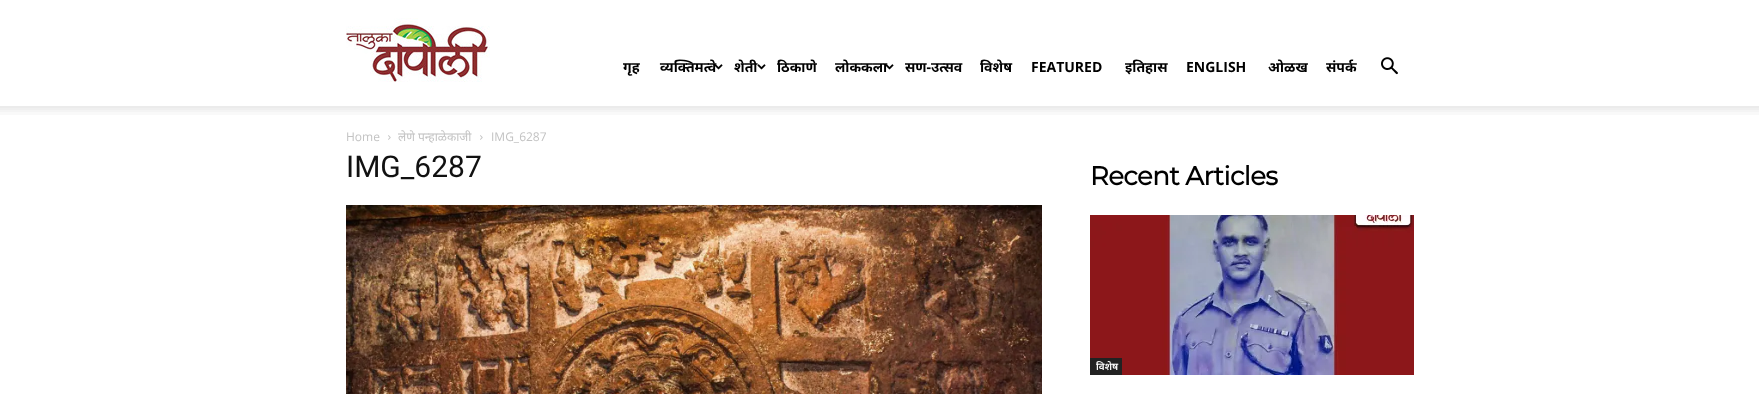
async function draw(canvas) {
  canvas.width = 1759;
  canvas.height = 394;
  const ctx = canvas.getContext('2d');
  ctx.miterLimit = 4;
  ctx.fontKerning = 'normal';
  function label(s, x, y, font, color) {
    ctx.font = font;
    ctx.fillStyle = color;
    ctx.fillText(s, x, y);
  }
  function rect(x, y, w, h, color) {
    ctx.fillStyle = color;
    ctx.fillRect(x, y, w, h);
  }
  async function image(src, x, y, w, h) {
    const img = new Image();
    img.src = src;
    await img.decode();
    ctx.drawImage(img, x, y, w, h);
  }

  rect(0, 0, 1759, 394, '#fff');
  await image('assets/img1.png', 346, 18, 144, 64);
  label('गृह', 623, 72, 'bold 14px Noto Sans', '#000');
  label('व्यक्तिमत्वे', 660, 72, 'bold 14px Noto Sans', '#000');
  await image('assets/img2.png', 715, 64, 8, 6);
  label('शेती', 734, 72, 'bold 14px Noto Sans', '#000');
  await image('assets/img3.png', 757, 64, 9, 6);
  label('ठिकाणे', 777, 72, 'bold 14px Noto Sans', '#000');
  label('लोककला', 835, 72, 'bold 14px Noto Sans', '#000');
  await image('assets/img3.png', 885, 64, 9, 6);
  label('सण-उत्सव', 905, 72, 'bold 14px Noto Sans', '#000');
  label('विशेष', 980, 72, 'bold 14px Noto Sans', '#000');
  label('FEATURED', 1031, 72, 'bold 14px Open Sans', '#000');
  label('इतिहास', 1125, 72, 'bold 14px Noto Sans', '#000');
  label('ENGLISH', 1186, 72, 'bold 14px Open Sans', '#000');
  label('ओळख', 1268, 72, 'bold 14px Noto Sans', '#000');
  label('संपर्क', 1326, 72, 'bold 14px Noto Sans', '#000');
  await image('assets/img4.png', 1381, 57, 17, 18);
  await image('assets/img5.png', 0, 106, 1759, 9);
  label('Home', 346, 141, '12px Open Sans', '#c3c3c3');
  await image('assets/img6.png', 388, 135, 3, 5);
  label('लेणे पन्हाळेकाजी', 398, 141, '12px Noto Sans', '#c3c3c3');
  await image('assets/img6.png', 480, 135, 3, 5);
  label('IMG_6287', 491, 141, '12px Open Sans', '#c3c3c3');
  label('IMG_6287', 346, 177, '30px Roboto', '#111');
  await image('assets/img7.png', 346, 205, 696, 189);
  ctx.letterSpacing = '-0.6px';
  label('Recent Articles', 1090, 185, 'bold 26px Montserrat', '#000');
  await image('assets/img8.png', 1090, 215, 324, 160);
  rect(1090, 358, 32, 17, '#222');
  ctx.letterSpacing = '0px';
  label('विशेष', 1096, 370, '600 10px Noto Sans', '#fff');
}

draw(document.querySelector('canvas'));
